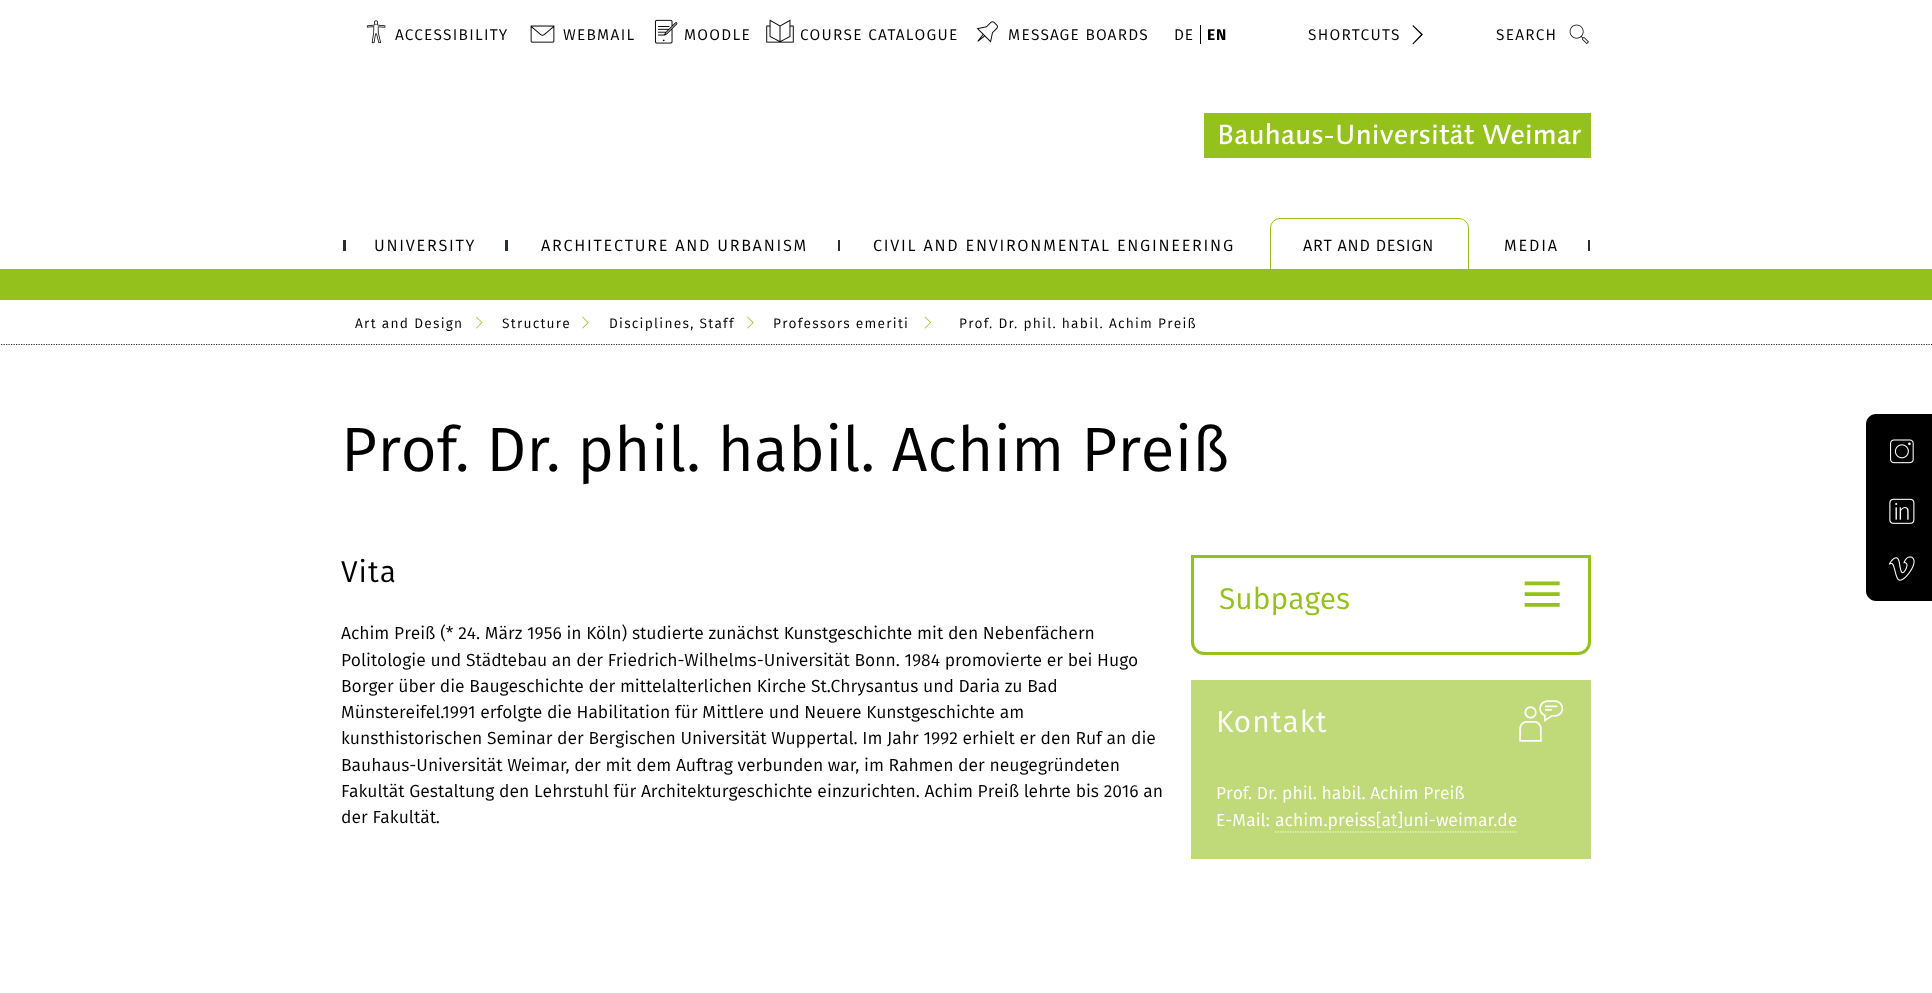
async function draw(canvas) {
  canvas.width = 1932;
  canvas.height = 993;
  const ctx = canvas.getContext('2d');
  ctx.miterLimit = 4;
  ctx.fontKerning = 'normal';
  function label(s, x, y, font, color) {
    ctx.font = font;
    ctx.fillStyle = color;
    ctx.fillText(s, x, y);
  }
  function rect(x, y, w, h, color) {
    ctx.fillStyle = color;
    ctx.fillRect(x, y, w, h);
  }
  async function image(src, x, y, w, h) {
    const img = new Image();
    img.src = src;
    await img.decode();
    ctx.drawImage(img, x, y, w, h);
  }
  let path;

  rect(0, 0, 1932, 993, '#fff');
  await image('assets/img1.png', 366, 20, 20, 24);
  ctx.letterSpacing = '1.25px';
  label('ACCESSIBILITY', 395, 40, '15.5px Fira Sans', '#000');
  await image('assets/img2.png', 530, 25, 25, 18);
  label('WEBMAIL', 563, 40, '15.5px Fira Sans', '#000');
  await image('assets/img3.png', 654, 19, 24, 25);
  label('MOODLE', 684, 40, '15.5px Fira Sans', '#000');
  await image('assets/img4.png', 766, 19, 28, 24);
  label('COURSE CATALOGUE', 800, 40, '15.5px Fira Sans', '#000');
  await image('assets/img5.png', 976, 21, 22, 22);
  label('MESSAGE BOARDS', 1008, 40, '15.5px Fira Sans', '#000');
  ctx.letterSpacing = '0.75px';
  label('DE', 1174, 40, '15.5px Fira Sans', '#000');
  rect(1200, 25, 1, 19, '#000');
  label('EN', 1207, 40, 'bold 15.5px Fira Sans', '#000');
  ctx.letterSpacing = '1.25px';
  label('SHORTCUTS', 1308, 40, '15.5px Fira Sans', '#000');
  path = new Path2D('M1413 25L1412.5 26L1421 34.5L1412.5 43.5L1413 44.5L1423 34.5Z');
  ctx.fill(path);
  label('SEARCH', 1496, 40, '15.5px Fira Sans', '#000');
  await image('assets/img6.png', 1569, 24, 20, 20);
  rect(1204, 113, 387, 45, '#94c11c');
  await image('assets/img7.png', 1219, 123, 362, 22);
  rect(505, 240, 3, 11, '#2b2e34');
  rect(343, 240, 3, 11, '#2b2e34');
  ctx.letterSpacing = '1.75px';
  label('UNIVERSITY', 374, 251, '16.25px Fira Sans', '#000');
  rect(838, 240, 2, 11, '#2b2e34');
  label('ARCHITECTURE AND URBANISM', 541, 251, '16.25px Fira Sans', '#000');
  label('CIVIL AND ENVIRONMENTAL ENGINEERING', 873, 251, '16.25px Fira Sans', '#000');
  ctx.beginPath();
  ctx.roundRect(1270.5, 218.5, 198, 54, [9.5, 9.5, 0, 0]);
  ctx.strokeStyle = '#94c11c';
  ctx.stroke();
  ctx.letterSpacing = '0.75px';
  label('ART AND DESIGN', 1303, 251, '16.25px Fira Sans', '#000');
  rect(1588, 240, 2, 11, '#2b2e34');
  ctx.letterSpacing = '1.75px';
  label('MEDIA', 1504, 251, '16.25px Fira Sans', '#000');
  rect(0, 269, 1932, 31, '#94c11c');
  ctx.letterSpacing = '1.25px';
  label('Art and Design', 355, 328, '13.75px Fira Sans', '#000');
  await image('assets/img8.png', 476, 316, 7, 13);
  label('Structure', 502, 328, '13.75px Fira Sans', '#000');
  await image('assets/img9.png', 582, 316, 7, 13);
  label('Disciplines, Staff', 609, 328, '13.75px Fira Sans', '#000');
  await image('assets/img9.png', 747, 316, 7, 13);
  label('Professors emeriti', 773, 328, '13.75px Fira Sans', '#000');
  await image('assets/img10.png', 924, 316, 8, 13);
  label('Prof. Dr. phil. habil. Achim Preiß', 959, 328, '13.75px Fira Sans', '#000');
  path = new Path2D('M-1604 344.5H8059');
  ctx.strokeStyle = '#2b2e34';
  ctx.lineWidth = 1.2;
  ctx.setLineDash([1.25, 1.25]);
  ctx.stroke(path);
  ctx.letterSpacing = '0px';
  label('Prof. Dr. phil. habil. Achim Preiß', 341, 471, '62.5px Fira Sans', '#000');
  ctx.letterSpacing = '1px';
  label('Vita', 341, 582, '30px Fira Sans', '#000');
  ctx.letterSpacing = '0px';
  label('Achim Preiß (* 24. März 1956 in Köln) studierte zunächst Kunstgeschichte mit den Nebenfächern', 341, 639, '17.5px Fira Sans', '#000');
  label('Politologie und Städtebau an der Friedrich-Wilhelms-Universität Bonn. 1984 promovierte er bei Hugo', 341, 666, '17.5px Fira Sans', '#000');
  label('Borger über die Baugeschichte der mittelalterlichen Kirche St.Chrysantus und Daria zu Bad', 341, 692, '17.5px Fira Sans', '#000');
  label('Münstereifel.1991 erfolgte die Habilitation für Mittlere und Neuere Kunstgeschichte am', 341, 718, '17.5px Fira Sans', '#000');
  label('kunsthistorischen Seminar der Bergischen Universität Wuppertal. Im Jahr 1992 erhielt er den Ruf an die', 341, 744, '17.5px Fira Sans', '#000');
  label('Bauhaus-Universität Weimar, der mit dem Auftrag verbunden war, im Rahmen der neugegründeten', 341, 771, '17.5px Fira Sans', '#000');
  label('Fakultät Gestaltung den Lehrstuhl für Architekturgeschichte einzurichten. Achim Preiß lehrte bis 2016 an', 341, 797, '17.5px Fira Sans', '#000');
  label('der Fakultät.', 341, 823, '17.5px Fira Sans', '#000');
  ctx.beginPath();
  ctx.roundRect(1192.5, 556.5, 397, 97, [0, 0, 11.5, 11.5]);
  ctx.strokeStyle = '#94c11c';
  ctx.lineWidth = 3;
  ctx.setLineDash([]);
  ctx.stroke();
  label('Subpages', 1219, 609, '30px Fira Sans', '#94c11c');
  label('≡', 1521, 619, '75px Liberation Serif', '#94c11c');
  rect(1191, 680, 400, 179, '#c0da79');
  ctx.letterSpacing = '1px';
  label('Kontakt', 1216, 732, '30px Fira Sans', '#fff');
  await image('assets/img11.png', 1519, 700, 45, 42);
  ctx.letterSpacing = '0px';
  label('Prof. Dr. phil. habil. Achim Preiß', 1216, 799, '17.5px Fira Sans', '#fff');
  label('E-Mail:', 1216, 826, '17.5px Fira Sans', '#fff');
  ctx.letterSpacing = '0.1px';
  label('achim.preiss[at]uni-weimar.de', 1275, 826, '17.5px Fira Sans', '#fff');
  path = new Path2D('M1275 832H1517.5');
  ctx.strokeStyle = '#fff';
  ctx.lineWidth = 1.2;
  ctx.setLineDash([1.25, 1.25]);
  ctx.stroke(path);
  ctx.fillStyle = '#000';
  path = new Path2D('M1876 414H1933V601H1876C1870.5 601 1866 596.5 1866 591V424C1866 418.5 1870.5 414 1876 414Z');
  ctx.fill(path);
  await image('assets/img12.png', 1890, 439, 24, 25);
  await image('assets/img13.png', 1889, 498, 26, 26);
  await image('assets/img14.png', 1888, 556, 27, 25);
}

draw(document.querySelector('canvas'));
